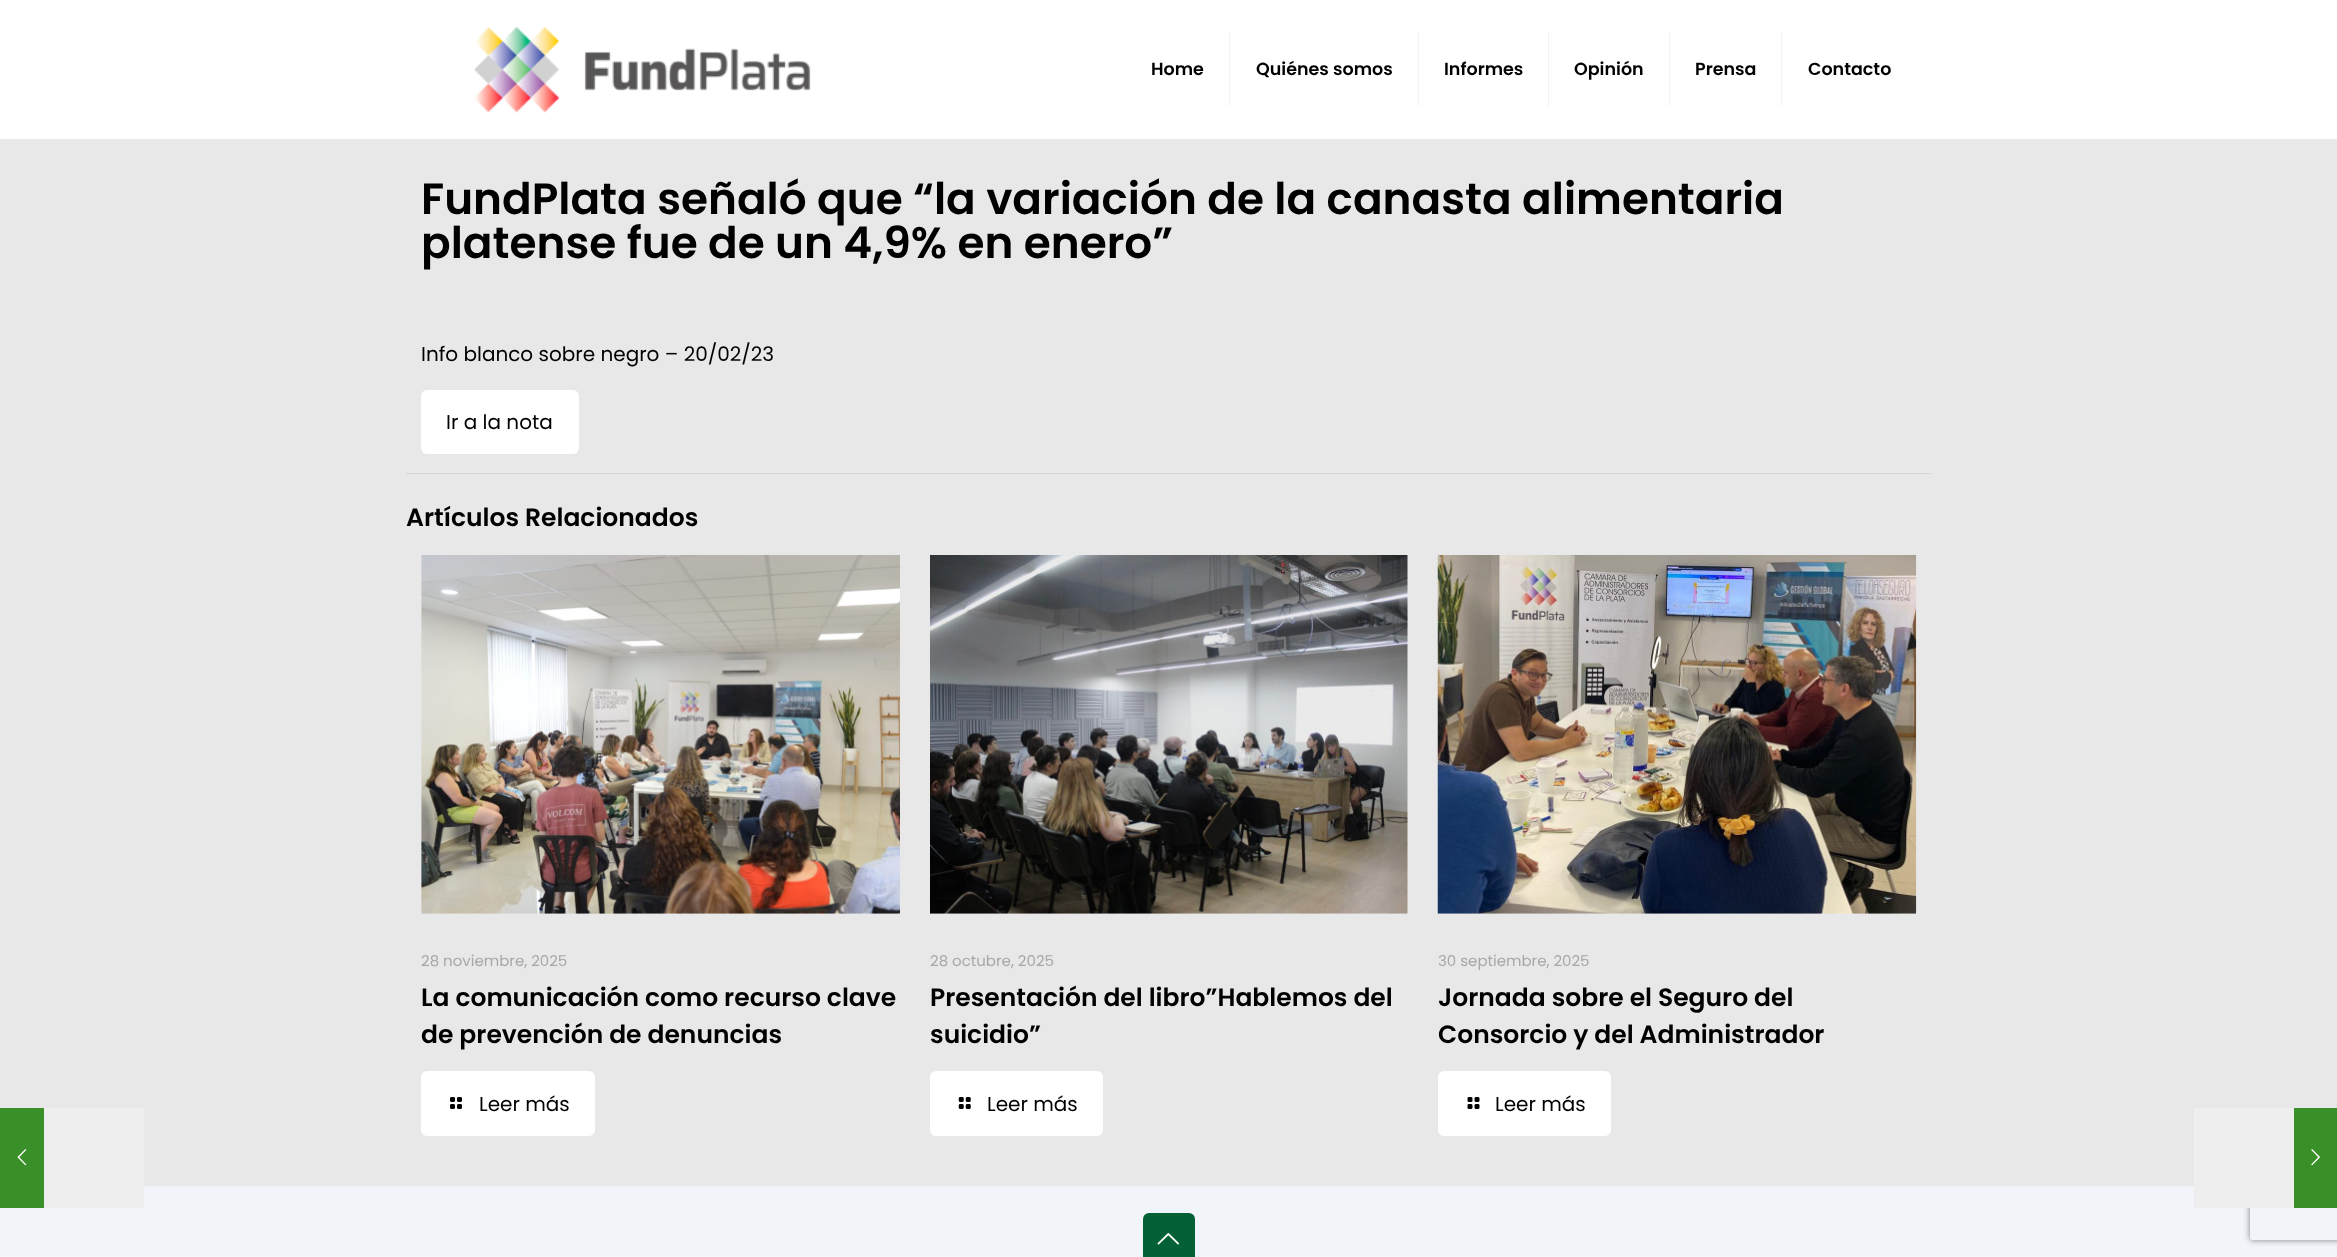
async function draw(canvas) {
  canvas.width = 2337;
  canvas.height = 1257;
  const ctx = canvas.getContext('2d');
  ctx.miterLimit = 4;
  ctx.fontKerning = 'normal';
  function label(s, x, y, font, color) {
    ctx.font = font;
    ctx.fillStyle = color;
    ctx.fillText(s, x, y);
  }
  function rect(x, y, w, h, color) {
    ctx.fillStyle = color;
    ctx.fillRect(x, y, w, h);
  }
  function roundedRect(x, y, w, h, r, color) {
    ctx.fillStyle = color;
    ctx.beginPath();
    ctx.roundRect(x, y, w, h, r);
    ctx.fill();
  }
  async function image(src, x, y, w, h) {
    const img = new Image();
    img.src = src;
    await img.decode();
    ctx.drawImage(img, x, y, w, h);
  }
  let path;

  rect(0, 0, 2337, 1257, '#e8e8e8');
  rect(0, 0, 2337, 139, '#fff');
  await image('assets/img1.png', 474, 26, 337, 87);
  rect(1229, 31, 1, 75, '#f2f2f2');
  label('Home', 1151, 75, '600 17.5px Poppins', '#000');
  rect(1418, 31, 1, 75, '#f2f2f2');
  label('Quiénes somos', 1256, 75, '600 17.5px Poppins', '#000');
  rect(1548, 31, 1, 75, '#f2f2f2');
  label('Informes', 1444, 75, '600 17.5px Poppins', '#000');
  rect(1669, 31, 1, 75, '#f2f2f2');
  label('Opinión', 1574, 75, '600 17.5px Poppins', '#000');
  rect(1781, 31, 1, 75, '#f2f2f2');
  label('Prensa', 1695, 75, '600 17.5px Poppins', '#000');
  label('Contacto', 1808, 75, '600 17.5px Poppins', '#000');
  label('FundPlata señaló que “la variación de la canasta alimentaria', 421, 214, '600 43.75px Poppins', '#000');
  label('platense fue de un 4,9% en enero”', 421, 258, '600 43.75px Poppins', '#000');
  label('Info blanco sobre negro – 20/02/23', 421, 361, '20px Poppins', '#000');
  roundedRect(421, 390, 158, 64, 6, '#fff');
  label('Ir a la nota', 446, 429, '20px Poppins', '#000');
  rect(406, 473, 1525, 1, '#d5d5d5');
  label('Artículos Relacionados', 406, 526, '600 25px Poppins', '#000');
  await image('assets/img2.png', 421, 555, 479, 359);
  label('28 noviembre, 2025', 421, 966, '15px Poppins', '#a8a8a8');
  label('La comunicación como recurso clave', 421, 1006, '600 25px Poppins', '#000');
  label('de prevención de denuncias', 421, 1043, '600 25px Poppins', '#000');
  roundedRect(421, 1071, 174, 65, 6, '#fff');
  await image('assets/img3.png', 450, 1097, 12, 12);
  label('Leer más', 479, 1111, '20px Poppins', '#000');
  await image('assets/img4.png', 930, 555, 478, 359);
  label('28 octubre, 2025', 930, 966, '15px Poppins', '#a8a8a8');
  label('Presentación del libro”Hablemos del', 930, 1006, '600 25px Poppins', '#000');
  label('suicidio”', 930, 1043, '600 25px Poppins', '#000');
  roundedRect(930, 1071, 173, 65, 6, '#fff');
  await image('assets/img5.png', 958, 1097, 13, 12);
  label('Leer más', 987, 1111, '20px Poppins', '#000');
  await image('assets/img6.png', 1437, 555, 480, 359);
  label('30 septiembre, 2025', 1438, 966, '15px Poppins', '#a8a8a8');
  label('Jornada sobre el Seguro del', 1438, 1006, '600 25px Poppins', '#000');
  label('Consorcio y del Administrador', 1438, 1043, '600 25px Poppins', '#000');
  roundedRect(1438, 1071, 173, 65, 6, '#fff');
  await image('assets/img7.png', 1467, 1097, 13, 12);
  label('Leer más', 1495, 1111, '20px Poppins', '#000');
  rect(0, 1186, 2337, 71, '#f1f4f9');
  roundedRect(1143, 1213, 52, 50, 6, '#046136');
  await image('assets/img8.png', 1157, 1233, 22, 12);
  rect(0, 1108, 44, 100, '#398f28');
  await image('assets/img9.png', 17, 1149, 10, 17);
  rect(44, 1108, 100, 100, '#eee');
  ctx.save();
  path = new Path2D('M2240 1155H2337V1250H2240ZM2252.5 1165H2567.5C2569 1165 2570 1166 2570 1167.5V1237.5C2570 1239 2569 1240 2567.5 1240H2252.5C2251 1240 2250 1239 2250 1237.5V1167.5C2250 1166 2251 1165 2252.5 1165Z');
  ctx.clip(path, 'evenodd');
  ctx.fillStyle = '#808080';
  ctx.filter = 'blur(3px)';
  ctx.beginPath();
  ctx.roundRect(2250, 1165, 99, 75, 2.5);
  ctx.fill();
  ctx.filter = 'none';
  ctx.restore();
  rect(2194, 1108, 100, 100, '#eee');
  rect(2294, 1108, 43, 100, '#398f28');
  await image('assets/img10.png', 2311, 1149, 9, 17);
}

draw(document.querySelector('canvas'));
